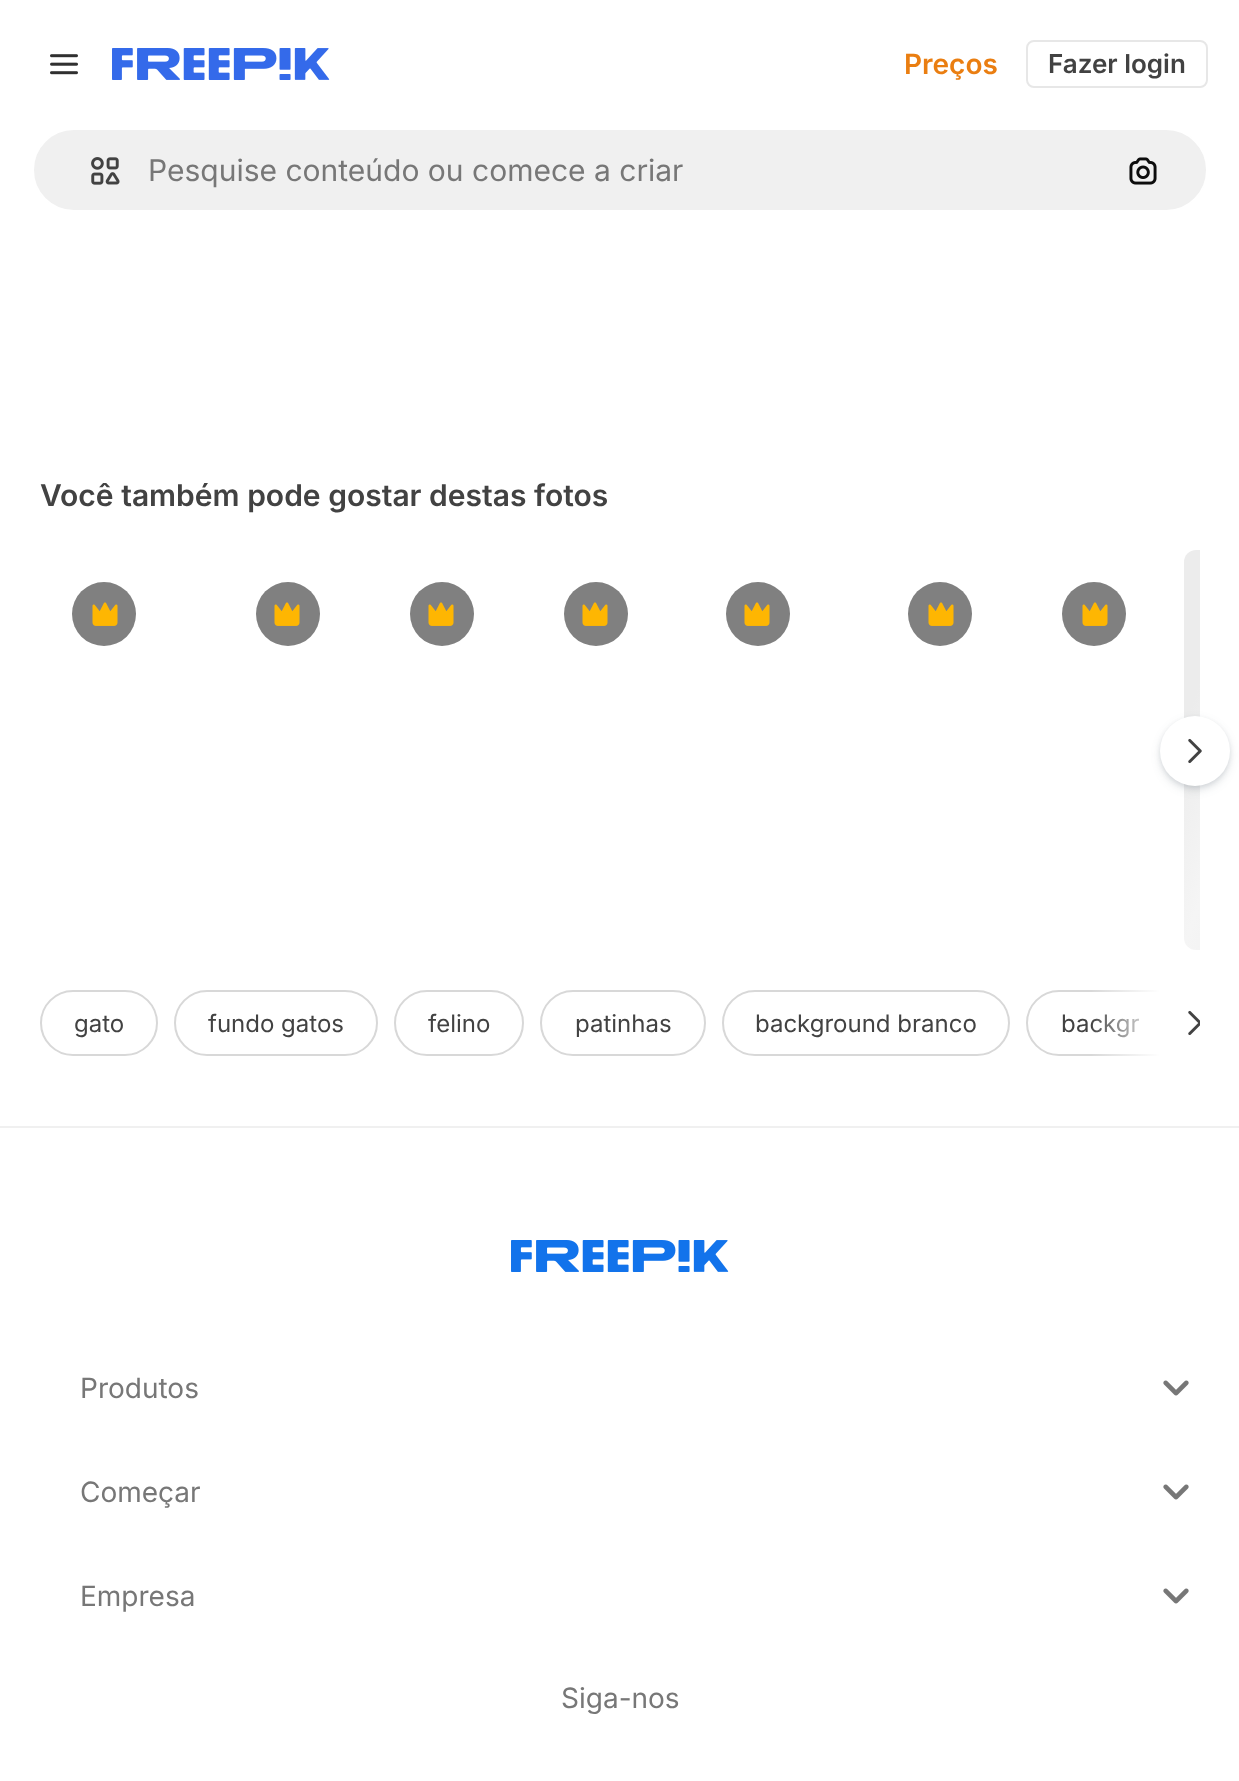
async function draw(canvas) {
  canvas.width = 1239;
  canvas.height = 1781;
  const ctx = canvas.getContext('2d');
  ctx.miterLimit = 4;
  ctx.fontKerning = 'normal';
  function label(s, x, y, font, color) {
    ctx.font = font;
    ctx.fillStyle = color;
    ctx.fillText(s, x, y);
  }
  function rect(x, y, w, h, color) {
    ctx.fillStyle = color;
    ctx.fillRect(x, y, w, h);
  }
  async function image(src, x, y, w, h) {
    const img = new Image();
    img.src = src;
    await img.decode();
    ctx.drawImage(img, x, y, w, h);
  }
  let gradient;

  rect(0, 0, 1239, 1781, '#fff');
  await image('assets/img1.png', 50, 54, 28, 21);
  await image('assets/img2.png', 112, 48, 218, 32);
  label('Preços', 904, 74, '600 28px Inter', '#ea7e11');
  ctx.beginPath();
  ctx.roundRect(1027, 41, 180, 46, 7);
  ctx.strokeStyle = '#e7e7e7';
  ctx.lineWidth = 2;
  ctx.stroke();
  label('Fazer login', 1048, 73, '600 26px Inter', '#424242');
  ctx.fillStyle = '#f0f0f0';
  ctx.beginPath();
  ctx.roundRect(33, 129, 1174, 82, 41);
  ctx.fill();
  ctx.strokeStyle = '#fff';
  ctx.stroke();
  await image('assets/img3.png', 91, 157, 29, 28);
  label('Pesquise conteúdo ou comece a criar', 148, 181, '30px Inter', '#777');
  await image('assets/img4.png', 1129, 157, 28, 28);
  label('Você também pode gostar destas fotos', 40, 506, '600 30px Inter', '#424242');
  ctx.fillStyle = '#808080';
  ctx.beginPath();
  ctx.arc(104, 614, 32, 0, 2 * Math.PI);
  ctx.fill();
  await image('assets/img5.png', 92, 602, 26, 24);
  ctx.beginPath();
  ctx.arc(288, 614, 32, 0, 2 * Math.PI);
  ctx.fill();
  await image('assets/img5.png', 274, 602, 26, 24);
  ctx.beginPath();
  ctx.arc(442, 614, 32, 0, 2 * Math.PI);
  ctx.fill();
  await image('assets/img5.png', 428, 602, 26, 24);
  ctx.beginPath();
  ctx.arc(596, 614, 32, 0, 2 * Math.PI);
  ctx.fill();
  await image('assets/img5.png', 582, 602, 26, 24);
  ctx.beginPath();
  ctx.arc(758, 614, 32, 0, 2 * Math.PI);
  ctx.fill();
  await image('assets/img5.png', 744, 602, 26, 24);
  ctx.beginPath();
  ctx.arc(940, 614, 32, 0, 2 * Math.PI);
  ctx.fill();
  await image('assets/img5.png', 928, 602, 26, 24);
  ctx.beginPath();
  ctx.arc(1094, 614, 32, 0, 2 * Math.PI);
  ctx.fill();
  await image('assets/img5.png', 1082, 602, 26, 24);
  gradient = ctx.createLinearGradient(1158, 622, 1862, 878);
  gradient.addColorStop(0.08, '#ececec');
  gradient.addColorStop(0.18, '#f5f5f5');
  gradient.addColorStop(0.33, '#ececec');
  ctx.fillStyle = gradient;
  ctx.beginPath();
  ctx.roundRect(1184, 550, 16, 400, [12, 0, 0, 12]);
  ctx.fill();
  ctx.fillStyle = '#37495726';
  ctx.filter = 'blur(5px)';
  ctx.beginPath();
  ctx.roundRect(1160, 720, 70, 70, 35);
  ctx.fill();
  ctx.filter = 'none';
  ctx.fillStyle = '#3749571a';
  ctx.filter = 'blur(2px)';
  ctx.beginPath();
  ctx.roundRect(1160, 718, 70, 70, 35);
  ctx.fill();
  ctx.filter = 'none';
  ctx.fillStyle = '#fff';
  ctx.beginPath();
  ctx.arc(1195, 751, 35, 0, 2 * Math.PI);
  ctx.fill();
  await image('assets/img6.png', 1188, 738, 14, 26);
  ctx.beginPath();
  ctx.roundRect(41, 991, 116, 64, 32);
  ctx.strokeStyle = '#d8d8d8';
  ctx.stroke();
  label('gato', 74, 1032, '24px Inter', '#424242');
  ctx.beginPath();
  ctx.roundRect(175, 991, 202, 64, 32);
  ctx.stroke();
  label('fundo gatos', 208, 1032, '24px Inter', '#424242');
  ctx.beginPath();
  ctx.roundRect(395, 991, 128, 64, 32);
  ctx.stroke();
  label('felino', 428, 1032, '24px Inter', '#424242');
  ctx.beginPath();
  ctx.roundRect(541, 991, 164, 64, 32);
  ctx.stroke();
  label('patinhas', 575, 1032, '24px Inter', '#424242');
  ctx.beginPath();
  ctx.roundRect(723, 991, 286, 64, 32);
  ctx.stroke();
  label('background branco', 755, 1032, '24px Inter', '#424242');
  ctx.save();
  ctx.beginPath();
  ctx.rect(40, 990, 1160, 66);
  ctx.clip();
  ctx.beginPath();
  ctx.roundRect(1027, 991, 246, 64, 32);
  ctx.stroke();
  ctx.restore();
  label('backgr', 1061, 1032, '24px Inter', '#424242');
  rect(1160, 990, 40, 66, '#fff');
  gradient = ctx.createLinearGradient(1160, 1023, 1090, 1023);
  gradient.addColorStop(0, '#fff');
  gradient.addColorStop(1, '#ffffff00');
  ctx.fillStyle = gradient;
  ctx.fillRect(1092, 990, 68, 66);
  await image('assets/img7.png', 1188, 1010, 12, 26);
  rect(0, 1126, 1239, 2, '#f0f0f0');
  await image('assets/img8.png', 511, 1240, 218, 32);
  label('Produtos', 80, 1398, '28px Inter', '#777');
  await image('assets/img9.png', 1163, 1380, 26, 16);
  label('Começar', 80, 1502, '28px Inter', '#777');
  await image('assets/img9.png', 1163, 1484, 26, 16);
  label('Empresa', 80, 1606, '28px Inter', '#777');
  await image('assets/img9.png', 1163, 1588, 26, 16);
  label('Siga-nos', 561, 1708, '28px Inter', '#777');
}

draw(document.querySelector('canvas'));
